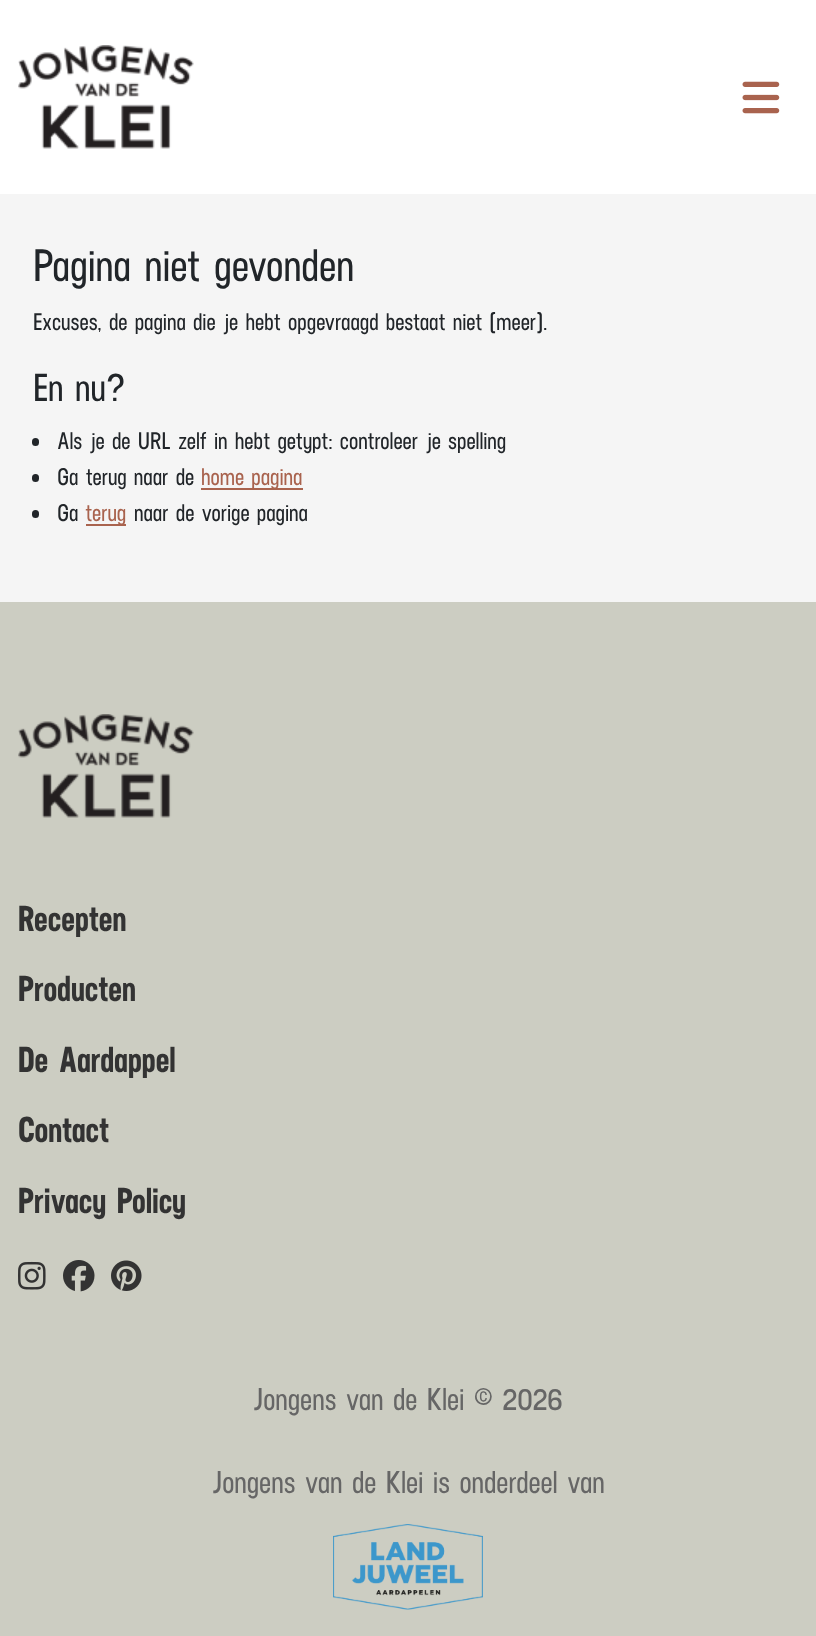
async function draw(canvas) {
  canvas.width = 816;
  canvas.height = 1636;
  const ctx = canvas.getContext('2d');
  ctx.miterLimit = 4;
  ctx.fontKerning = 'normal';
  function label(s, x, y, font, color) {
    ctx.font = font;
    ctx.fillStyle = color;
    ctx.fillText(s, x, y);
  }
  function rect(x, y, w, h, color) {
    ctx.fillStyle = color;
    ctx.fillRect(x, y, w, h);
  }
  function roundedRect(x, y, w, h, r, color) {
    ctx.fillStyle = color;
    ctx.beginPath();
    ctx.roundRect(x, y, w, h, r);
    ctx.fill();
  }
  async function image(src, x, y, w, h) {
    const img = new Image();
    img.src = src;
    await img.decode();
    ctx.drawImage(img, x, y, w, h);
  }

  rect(0, 0, 816, 1636, '#fff');
  await image('assets/img1.png', 18, 45, 176, 104);
  await image('assets/img2.png', 742, 81, 38, 33);
  rect(0, 194, 816, 408, '#f5f5f5');
  label('Pagina niet gevonden', 33, 281, '600 45.25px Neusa', '#212529');
  label('Excuses, de pagina die je hebt opgevraagd bestaat niet (meer).', 33, 330, '600 24px Neusa', '#212529');
  label('En nu?', 33, 401, '600 39px Neusa', '#212529');
  roundedRect(32, 438, 7, 8, 3.5, '#212529');
  label('Als je de URL zelf in hebt getypt: controleer je spelling', 57, 449, '600 24px Neusa', '#212529');
  roundedRect(32, 474, 7, 8, 3.5, '#212529');
  label('Ga terug naar de', 57, 485, '600 24px Neusa', '#212529');
  rect(201, 488, 102, 2, '#a9634e');
  label('home pagina', 201, 485, '600 24px Neusa', '#a9634e');
  roundedRect(32, 510, 7, 8, 3.5, '#212529');
  label('Ga', 57, 521, '600 24px Neusa', '#212529');
  rect(86, 524, 40, 2, '#a9634e');
  label('terug', 85, 521, '600 24px Neusa', '#a9634e');
  label('naar de vorige pagina', 134, 521, '600 24px Neusa', '#212529');
  rect(0, 602, 816, 1034, '#cccdc2');
  await image('assets/img3.png', 18, 714, 176, 104);
  label('Recepten', 18, 931, '36px Neusa', '#333');
  label('Producten', 18, 1001, '36px Neusa', '#333');
  label('De Aardappel', 18, 1072, '36px Neusa', '#333');
  label('Contact', 18, 1142, '36px Neusa', '#333');
  label('Privacy Policy', 18, 1213, '36px Neusa', '#333');
  await image('assets/img4.png', 18, 1261, 28, 29);
  await image('assets/img5.png', 63, 1260, 32, 32);
  await image('assets/img6.png', 111, 1260, 31, 31);
  label('Jongens van de Klei © 2026', 253, 1410, '600 31.5px Neusa', '#666');
  label('Jongens van de Klei is onderdeel van', 212, 1493, '600 31.5px Neusa', '#666');
  await image('assets/img7.png', 333, 1524, 150, 86);
}

draw(document.querySelector('canvas'));
